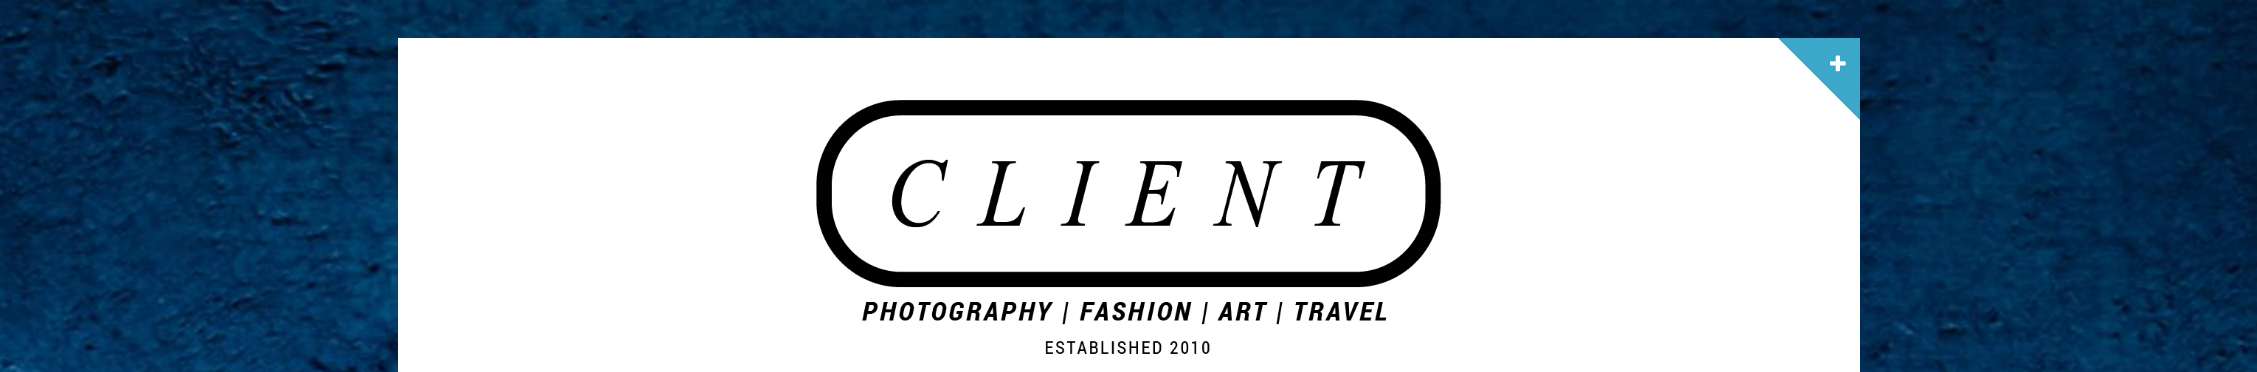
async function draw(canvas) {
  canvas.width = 2257;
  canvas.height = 372;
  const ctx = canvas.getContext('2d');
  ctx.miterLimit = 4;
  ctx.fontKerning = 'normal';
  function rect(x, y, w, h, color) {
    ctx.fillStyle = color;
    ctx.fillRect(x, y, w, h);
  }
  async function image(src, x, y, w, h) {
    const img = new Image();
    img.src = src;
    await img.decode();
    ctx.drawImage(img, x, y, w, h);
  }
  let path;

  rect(0, 0, 2257, 372, '#fff');
  await image('assets/img1.png', 0, 0, 2257, 372);
  rect(398, 38, 1462, 334, '#fff');
  ctx.fillStyle = '#3ca8c9';
  path = new Path2D('M1860 38V120L1778 38Z');
  ctx.fill(path);
  await image('assets/img2.png', 1830, 55, 16, 17);
  await image('assets/img3.png', 816, 100, 626, 254);
}

draw(document.querySelector('canvas'));
